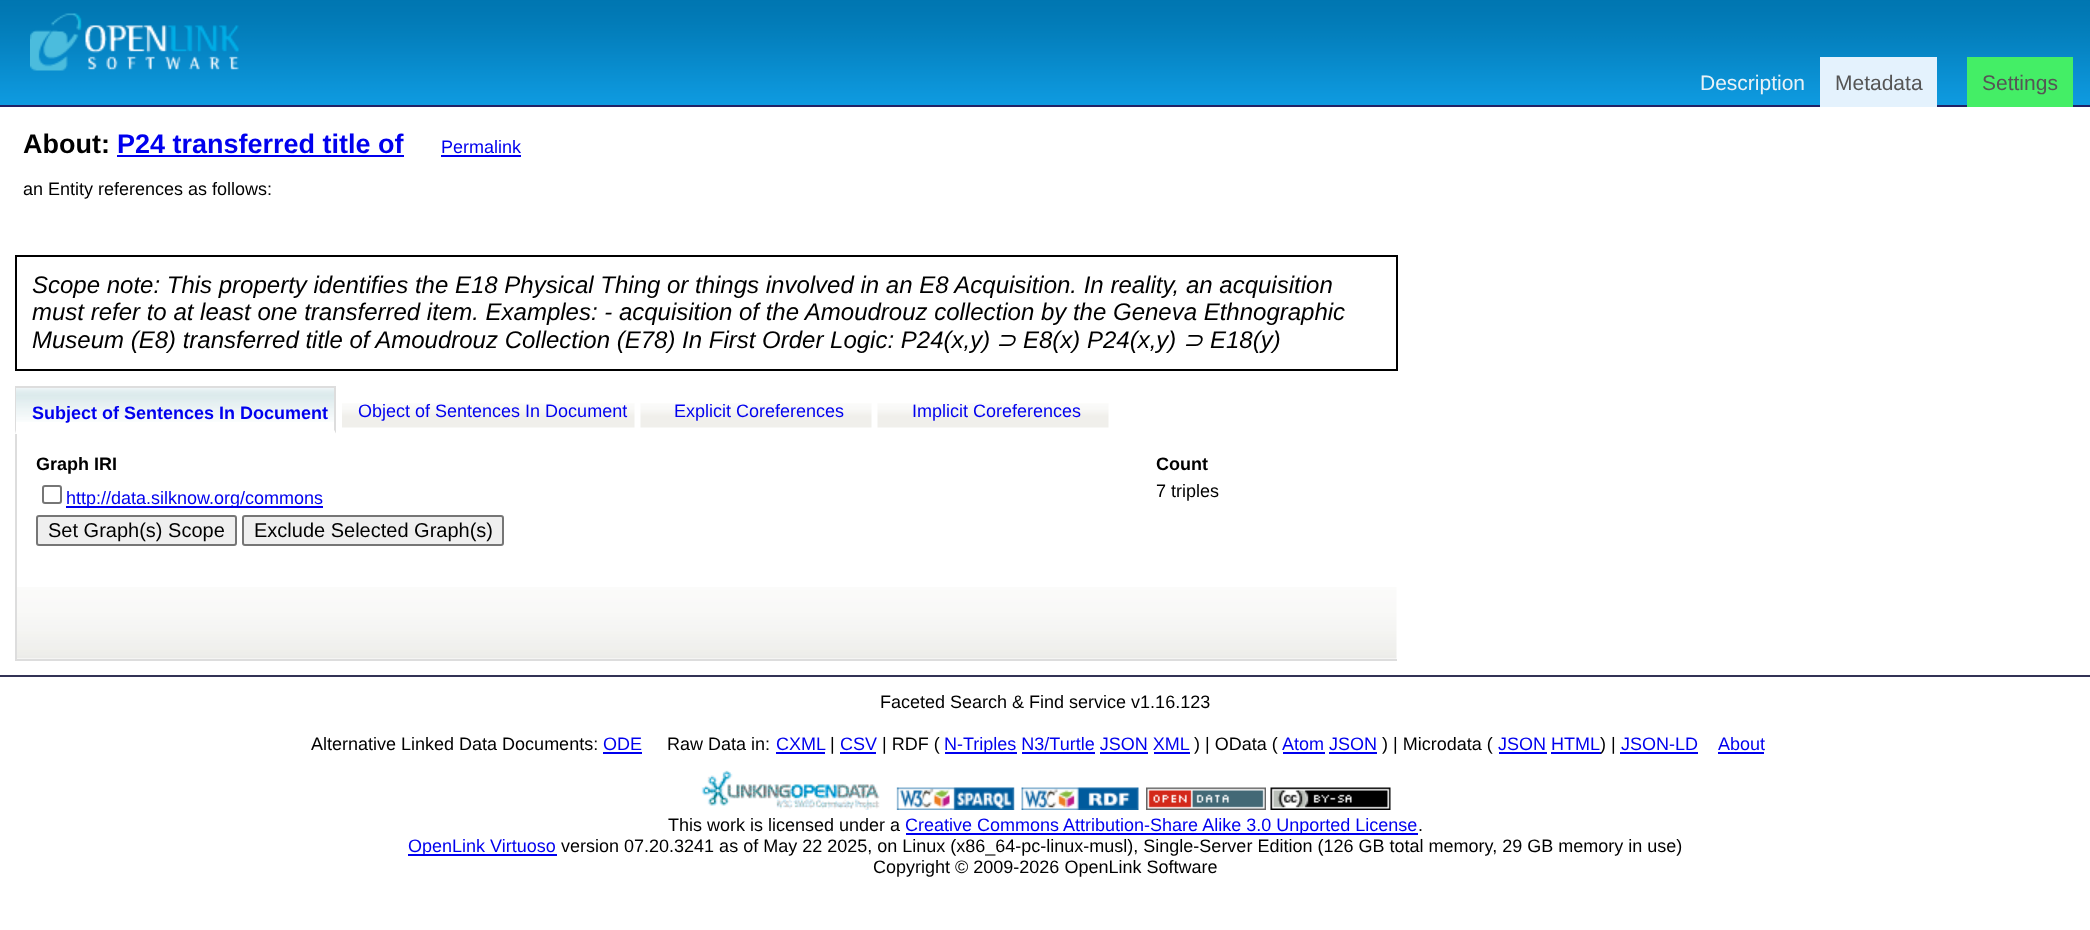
async function draw(canvas) {
  canvas.width = 2090;
  canvas.height = 930;
  const ctx = canvas.getContext('2d');
  ctx.miterLimit = 4;
  ctx.fontKerning = 'normal';
  function label(s, x, y, font, color) {
    ctx.font = font;
    ctx.fillStyle = color;
    ctx.fillText(s, x, y);
  }
  function rect(x, y, w, h, color) {
    ctx.fillStyle = color;
    ctx.fillRect(x, y, w, h);
  }
  async function image(src, x, y, w, h) {
    const img = new Image();
    img.src = src;
    await img.decode();
    ctx.drawImage(img, x, y, w, h);
  }
  let path;

  rect(0, 0, 2090, 930, '#fff');
  await image('assets/img1.png', 0, 0, 2090, 105);
  rect(0, 105, 2090, 2, '#226');
  await image('assets/img2.png', 30, 13, 209, 58);
  label('Description', 1700, 90, '21px Liberation Sans', '#e9f2f7');
  rect(1820, 57, 117, 50, '#e4f2fd');
  label('Metadata', 1835, 90, '21px Liberation Sans', '#555');
  rect(1967, 57, 106, 50, '#4e6');
  label('Settings', 1982, 90, '21px Liberation Sans', '#555');
  label('About:', 23, 153, 'bold 27px Liberation Sans', '#000');
  label('P24 transferred title of', 117, 153, 'bold 27px Liberation Sans', '#00e');
  rect(117, 155, 287, 2, '#00e');
  label('Permalink', 441, 153, '18px Liberation Sans', '#00e');
  rect(441, 155, 80, 2, '#00e');
  label('an Entity references as follows:', 23, 195, '18px Liberation Sans', '#000');
  ctx.strokeStyle = '#000';
  ctx.lineWidth = 2;
  ctx.strokeRect(16, 256, 1381, 114);
  label('Scope note: This property identifies the E18 Physical Thing or things involved in an E8 Acquisition. In reality, an acquisition', 32, 293, 'italic 24px Liberation Sans', '#000');
  label('must refer to at least one transferred item. Examples: - acquisition of the Amoudrouz collection by the Geneva Ethnographic', 32, 320, 'italic 24px Liberation Sans', '#000');
  label('Museum (E8) transferred title of Amoudrouz Collection (E78) In First Order Logic: P24(x,y)', 32, 348, 'italic 24px Liberation Sans', '#000');
  label('⊃', 996, 348, 'italic 24px DejaVu Sans', '#000');
  label('E8(x) P24(x,y)', 1023, 348, 'italic 24px Liberation Sans', '#000');
  label('⊃', 1183, 348, 'italic 24px DejaVu Sans', '#000');
  label('E18(y)', 1210, 348, 'italic 24px Liberation Sans', '#000');
  await image('assets/img3.png', 16, 388, 318, 34);
  rect(15, 386, 321, 2, '#ddd');
  path = new Path2D('M336 386V434L334 430V387Z');
  ctx.fill(path);
  ctx.fillStyle = '#fff';
  path = new Path2D('M336 434H15L16 430H334Z');
  ctx.fill(path);
  ctx.fillStyle = '#ddd';
  path = new Path2D('M15 434V386L16 387V430Z');
  ctx.fill(path);
  label('Subject of Sentences In Document', 32, 419, 'bold 18px Liberation Sans', '#00e');
  await image('assets/img4.png', 342, 403, 293, 25);
  label('Object of Sentences In Document', 358, 417, '18px Liberation Sans', '#00e');
  await image('assets/img5.png', 640, 403, 232, 25);
  label('Explicit Coreferences', 674, 417, '18px Liberation Sans', '#00e');
  await image('assets/img5.png', 877, 403, 232, 25);
  label('Implicit Coreferences', 912, 417, '18px Liberation Sans', '#00e');
  await image('assets/img6.png', 17, 587, 1380, 72);
  rect(15, 659, 1382, 2, '#ddd');
  rect(15, 434, 2, 226, '#ddd');
  label('Graph IRI', 36, 470, 'bold 18px Liberation Sans', '#000');
  label('Count', 1156, 470, 'bold 18px Liberation Sans', '#000');
  ctx.beginPath();
  ctx.roundRect(43, 486, 18, 17, 2);
  ctx.strokeStyle = '#767676';
  ctx.stroke();
  rect(66, 506, 257, 2, '#00e');
  label('http://data.silknow.org/commons', 66, 504, '18px Liberation Sans', '#00e');
  label('7 triples', 1156, 497, '18px Liberation Sans', '#000');
  ctx.fillStyle = '#efefef';
  ctx.beginPath();
  ctx.roundRect(37, 516, 199, 29, 2);
  ctx.fill();
  ctx.stroke();
  label('Set Graph(s) Scope', 48, 537, '20px Liberation Sans', '#000');
  ctx.fillStyle = '#efefef';
  ctx.beginPath();
  ctx.roundRect(243, 516, 260, 29, 2);
  ctx.fill();
  ctx.stroke();
  label('Exclude Selected Graph(s)', 254, 537, '20px Liberation Sans', '#000');
  rect(0, 675, 2090, 2, '#335');
  label('Faceted Search & Find service v1.16.123', 880, 708, '18px Liberation Sans', '#000');
  label('Alternative Linked Data Documents:', 311, 750, '18px Liberation Sans', '#000');
  label('ODE', 603, 750, '18px Liberation Sans', '#00e');
  rect(603, 752, 39, 2, '#00e');
  label('Raw Data in:', 667, 750, '18px Liberation Sans', '#000');
  label('CXML', 776, 750, '18px Liberation Sans', '#00e');
  rect(776, 752, 49, 2, '#00e');
  label('|', 830, 750, '18px Liberation Sans', '#000');
  label('CSV', 840, 750, '18px Liberation Sans', '#00e');
  rect(840, 752, 36, 2, '#00e');
  label('| RDF (', 882, 750, '18px Liberation Sans', '#000');
  rect(945, 752, 72, 2, '#00e');
  label('N-Triples N3/Turtle JSON XML', 944, 750, '18px Liberation Sans', '#00e');
  label(') | OData (', 1194, 750, '18px Liberation Sans', '#000');
  label('Atom JSON', 1282, 750, '18px Liberation Sans', '#00e');
  rect(1283, 752, 42, 2, '#00e');
  label(') | Microdata (', 1382, 750, '18px Liberation Sans', '#000');
  label('JSON HTML', 1498, 750, '18px Liberation Sans', '#00e');
  rect(1499, 752, 48, 2, '#00e');
  rect(1551, 752, 50, 2, '#00e');
  label(') |', 1600, 750, '18px Liberation Sans', '#000');
  label('JSON-LD', 1621, 750, '18px Liberation Sans', '#00e');
  rect(1620, 752, 78, 2, '#00e');
  label('About', 1718, 750, '18px Liberation Sans', '#00e');
  rect(1718, 752, 46, 2, '#00e');
  rect(1022, 752, 73, 2, '#00e');
  rect(1100, 752, 48, 2, '#00e');
  rect(1154, 752, 36, 2, '#00e');
  rect(1329, 752, 48, 2, '#00e');
  await image('assets/img7.png', 701, 770, 179, 40);
  await image('assets/img8.png', 896, 787, 119, 23);
  await image('assets/img9.png', 1021, 787, 118, 23);
  await image('assets/img10.png', 1146, 787, 120, 23);
  await image('assets/img11.png', 1270, 787, 121, 23);
  label('This work is licensed under a', 668, 831, '18px Liberation Sans', '#000');
  rect(906, 833, 512, 2, '#00e');
  label('Creative Commons Attribution-Share Alike 3.0 Unported License', 905, 831, '18px Liberation Sans', '#00e');
  label('.', 1418, 831, '18px Liberation Sans', '#000');
  rect(408, 854, 149, 2, '#00e');
  label('OpenLink Virtuoso', 408, 852, '18px Liberation Sans', '#00e');
  label('version 07.20.3241 as of May 22 2025, on Linux (x86_64-pc-linux-musl), Single-Server Edition (126 GB total memory, 29 GB memory in use)', 561, 852, '18px Liberation Sans', '#000');
  label('Copyright © 2009-2026 OpenLink Software', 873, 873, '18px Liberation Sans', '#000');
}

draw(document.querySelector('canvas'));
